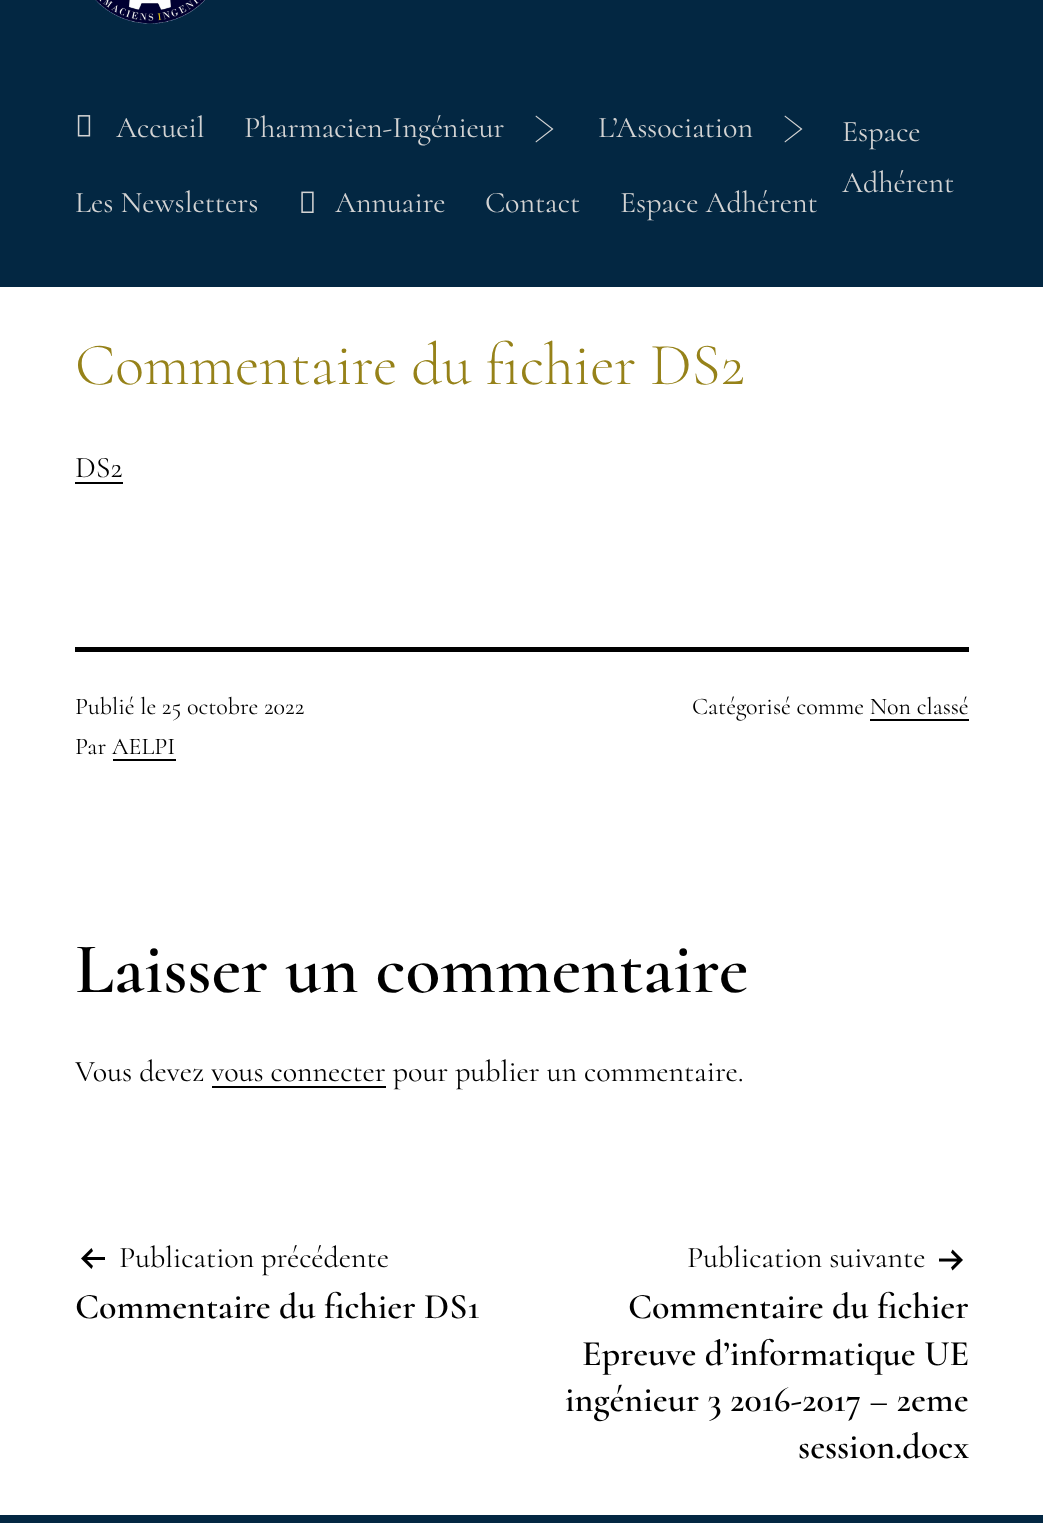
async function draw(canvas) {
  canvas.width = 1043;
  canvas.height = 1523;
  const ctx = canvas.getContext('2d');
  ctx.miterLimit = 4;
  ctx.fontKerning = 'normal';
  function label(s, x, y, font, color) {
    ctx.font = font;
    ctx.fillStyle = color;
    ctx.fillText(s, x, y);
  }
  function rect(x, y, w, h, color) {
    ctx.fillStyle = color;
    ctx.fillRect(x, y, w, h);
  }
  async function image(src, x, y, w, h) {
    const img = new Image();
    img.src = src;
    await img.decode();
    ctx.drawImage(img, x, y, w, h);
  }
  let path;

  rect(0, 0, 1043, 1523, '#fff');
  rect(0, 0, 1043, 287, '#032742');
  await image('assets/img1.png', 95, 0, 110, 24);
  await image('assets/img2.png', 77, 115, 14, 22);
  label('Accueil', 116, 137, '30px Cormorant', '#d3d3d3');
  label('Pharmacien-Ingénieur', 244, 137, '30px Cormorant', '#d3d3d3');
  path = new Path2D('M535.5 116.5L551.5 129L535.5 141.5L536 142.5L553.5 129L536 115.5Z');
  ctx.fill(path, 'evenodd');
  label('L’Association', 598, 137, '30px Cormorant', '#d3d3d3');
  path = new Path2D('M784.5 116.5L800.5 129L784.5 141.5L785 142.5L802.5 129L785 115.5Z');
  ctx.fill(path, 'evenodd');
  label('Les Newsletters', 75, 212, '30px Cormorant', '#d3d3d3');
  await image('assets/img3.png', 301, 191, 13, 22);
  label('Annuaire', 335, 212, '30px Cormorant', '#d3d3d3');
  label('Contact', 485, 212, '30px Cormorant', '#d3d3d3');
  label('Espace Adhérent', 620, 212, '30px Cormorant', '#d3d3d3');
  label('Espace', 842, 141, '30px Cormorant', '#d3d3d3');
  label('Adhérent', 842, 192, '30px Cormorant', '#d3d3d3');
  label('Commentaire du fichier DS2', 75, 384, '300 60px Cormorant', '#968219');
  label('DS2', 75, 477, '30px Cormorant', '#000');
  rect(75, 482, 48, 2, '#000');
  rect(75, 647, 894, 5, '#000');
  label('Publié le 25 octobre 2022', 75, 714, '24px Cormorant', '#000');
  label('Par AELPI', 75, 754, '24px Cormorant', '#000');
  rect(113, 759, 63, 2, '#000');
  label('Catégorisé comme Non classé', 692, 714, '24px Cormorant', '#000');
  rect(870, 719, 99, 2, '#000');
  label('Laisser un commentaire', 75, 992, '600 72px Cormorant', '#000');
  label('Vous devez vous connecter pour publier un commentaire.', 75, 1081, '30px Cormorant', '#000');
  rect(212, 1086, 174, 2, '#000');
  await image('assets/img4.png', 81, 1248, 24, 21);
  label('Publication précédente', 119, 1267, '30px Cormorant', '#000');
  label('Commentaire du fichier DS1', 75, 1318, '600 36px Cormorant', '#000');
  label('Publication suivante', 687, 1267, '30px Cormorant', '#000');
  await image('assets/img5.png', 939, 1249, 24, 22);
  label('Commentaire du fichier', 628, 1318, '600 36px Cormorant', '#000');
  label('Epreuve d’informatique UE', 582, 1365, '600 36px Cormorant', '#000');
  label('ingénieur 3 2016-2017 – 2eme', 565, 1411, '600 36px Cormorant', '#000');
  label('session.docx', 798, 1458, '600 36px Cormorant', '#000');
  rect(0, 1515, 1043, 8, '#032742');
}

draw(document.querySelector('canvas'));
